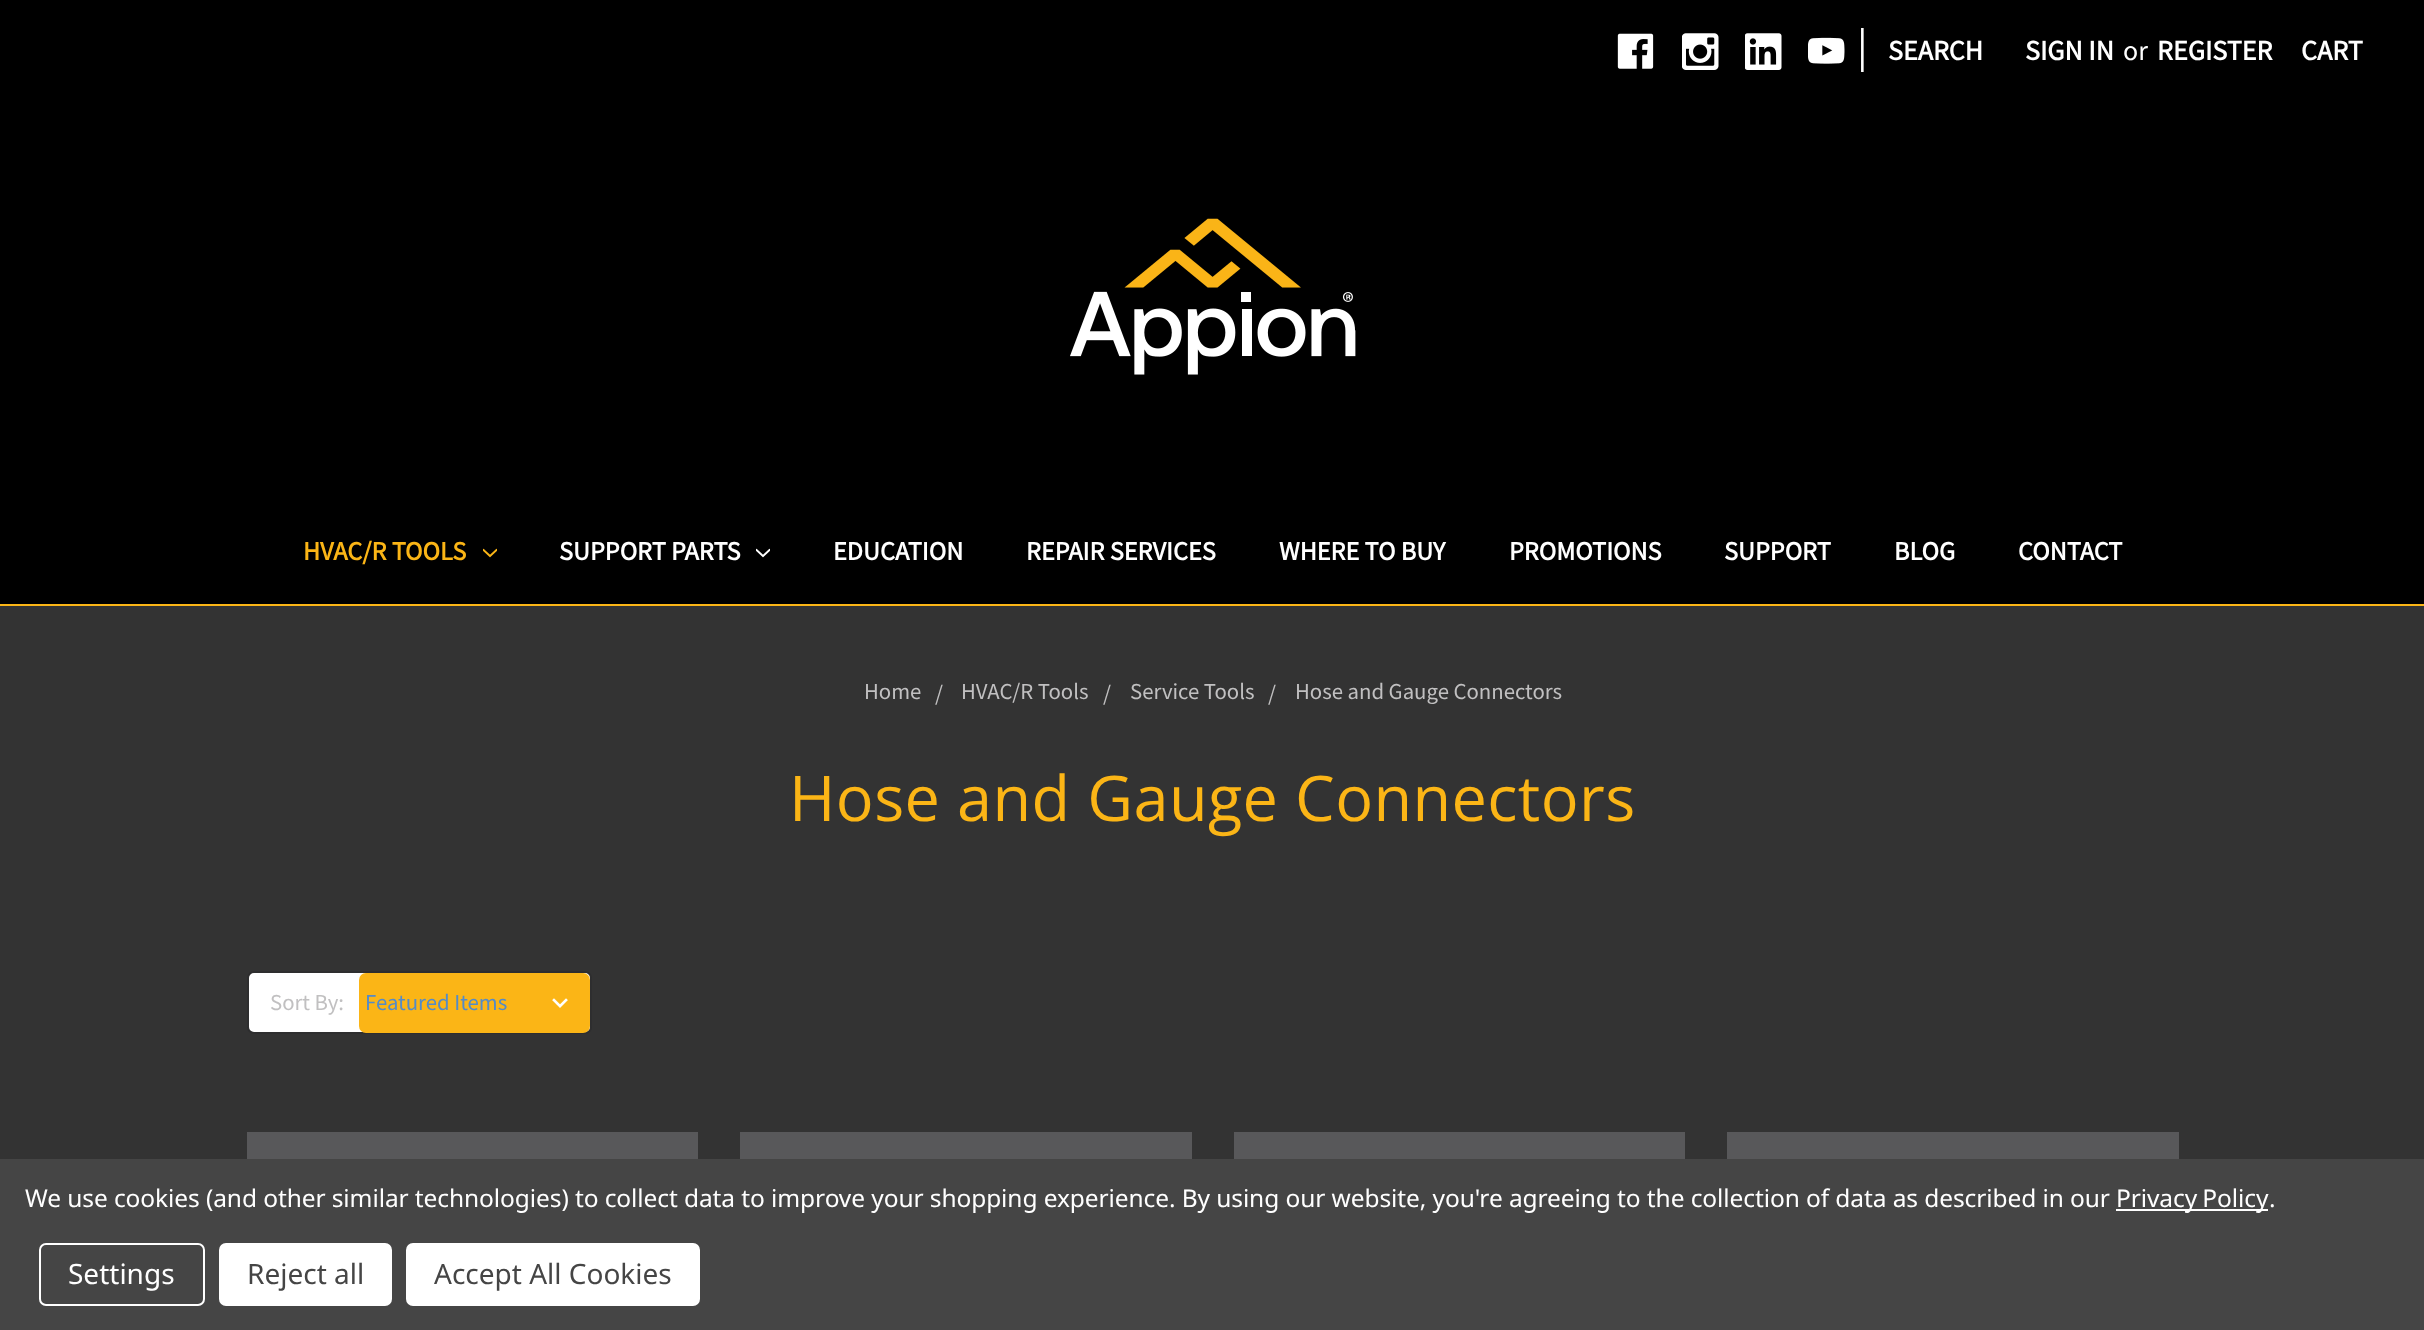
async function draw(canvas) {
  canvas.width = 2424;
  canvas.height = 1330;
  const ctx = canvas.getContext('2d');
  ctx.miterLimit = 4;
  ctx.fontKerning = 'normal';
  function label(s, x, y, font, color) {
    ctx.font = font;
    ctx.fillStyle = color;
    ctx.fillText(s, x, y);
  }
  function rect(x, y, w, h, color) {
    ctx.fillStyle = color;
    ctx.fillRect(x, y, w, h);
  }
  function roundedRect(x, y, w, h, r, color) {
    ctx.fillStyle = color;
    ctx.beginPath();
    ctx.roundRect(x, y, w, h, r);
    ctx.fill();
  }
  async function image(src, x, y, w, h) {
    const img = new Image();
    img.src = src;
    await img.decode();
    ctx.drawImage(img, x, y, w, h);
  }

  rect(0, 0, 2424, 1330, '#333');
  rect(0, 0, 2424, 604, '#000');
  rect(0, 604, 2424, 2, '#fbb516');
  await image('assets/img1.png', 1617, 33, 37, 36);
  await image('assets/img2.png', 1682, 33, 37, 37);
  await image('assets/img3.png', 1745, 33, 37, 37);
  await image('assets/img4.png', 1808, 37, 37, 27);
  label('|', 1857, 61, '44px Source Sans Pro', '#fff');
  label('SEARCH', 1888, 60, 'bold 28px Source Sans Pro', '#fff');
  label('SIGN IN', 2025, 60, 'bold 28px Source Sans Pro', '#fff');
  label('or', 2123, 60, '28px Source Sans Pro', '#fff');
  label('REGISTER', 2157, 60, 'bold 28px Source Sans Pro', '#fff');
  label('CART', 2301, 60, 'bold 28px Source Sans Pro', '#fff');
  await image('assets/img5.png', 1070, 218, 286, 157);
  label('HVAC/R TOOLS', 303, 560, 'bold 26.25px Source Sans Pro', '#fbb516');
  await image('assets/img6.png', 483, 548, 14, 10);
  label('SUPPORT PARTS', 559, 560, 'bold 26.25px Source Sans Pro', '#fff');
  await image('assets/img7.png', 756, 548, 14, 10);
  label('EDUCATION', 833, 560, 'bold 26.25px Source Sans Pro', '#fff');
  label('REPAIR SERVICES', 1026, 560, 'bold 26.25px Source Sans Pro', '#fff');
  label('WHERE TO BUY', 1279, 560, 'bold 26.25px Source Sans Pro', '#fff');
  label('PROMOTIONS', 1509, 560, 'bold 26.25px Source Sans Pro', '#fff');
  label('SUPPORT', 1724, 560, 'bold 26.25px Source Sans Pro', '#fff');
  label('BLOG', 1894, 560, 'bold 26.25px Source Sans Pro', '#fff');
  label('CONTACT', 2018, 560, 'bold 26.25px Source Sans Pro', '#fff');
  label('Home', 864, 699, '22.75px Source Sans Pro', '#c1c0c1');
  label('/', 935, 701, '22.75px Source Sans Pro', '#c1c0c1');
  label('HVAC/R Tools', 961, 699, '22.75px Source Sans Pro', '#c1c0c1');
  label('/', 1103, 701, '22.75px Source Sans Pro', '#c1c0c1');
  label('Service Tools', 1130, 699, '22.75px Source Sans Pro', '#c1c0c1');
  label('/', 1268, 701, '22.75px Source Sans Pro', '#c1c0c1');
  label('Hose and Gauge Connectors', 1295, 699, '22.75px Source Sans Pro', '#c1c0c1');
  ctx.letterSpacing = '0.4px';
  label('Hose and Gauge Connectors', 789, 821, '63px Open Sans', '#fbb516');
  ctx.fillStyle = '#fff';
  ctx.beginPath();
  ctx.roundRect(248, 972, 343, 61, 6);
  ctx.fill();
  ctx.strokeStyle = '#2e2e2f';
  ctx.lineWidth = 2;
  ctx.stroke();
  ctx.letterSpacing = '0px';
  label('Sort By:', 270, 1010, '22.75px Source Sans Pro', '#c1c0c1');
  roundedRect(359, 973, 231, 60, 7, '#fbb516');
  await image('assets/img8.png', 552, 998, 16, 10);
  label('Featured Items', 365, 1010, '22.75px Source Sans Pro', '#548bc8');
  rect(247, 1132, 451, 27, '#58585a');
  rect(740, 1132, 452, 27, '#58585a');
  rect(1234, 1132, 451, 27, '#58585a');
  rect(1727, 1132, 452, 27, '#58585a');
  rect(0, 1159, 2424, 171, '#454545');
  ctx.letterSpacing = '-0.09px';
  label('We use cookies (and other similar technologies) to collect data to improve your shopping experience. By using our website, you\'re agreeing to the collection of data as described in our', 25, 1207, '24.5px Noto Sans', '#fff');
  rect(2116, 1209, 152, 2, '#fff');
  ctx.wordSpacing = '-1px';
  label('Privacy Policy', 2116, 1207, '24.5px Noto Sans', '#fff');
  ctx.wordSpacing = '0px';
  label('.', 2269, 1207, '24.5px Noto Sans', '#fff');
  ctx.beginPath();
  ctx.roundRect(40, 1244, 164, 61, 6);
  ctx.strokeStyle = '#fff';
  ctx.stroke();
  ctx.letterSpacing = '0px';
  label('Settings', 68, 1284, '28px Noto Sans', '#fff');
  roundedRect(219, 1243, 173, 63, 7, '#fff');
  label('Reject all', 247, 1284, '28px Noto Sans', '#454545');
  roundedRect(406, 1243, 294, 63, 7, '#fff');
  label('Accept All Cookies', 434, 1284, '28px Noto Sans', '#454545');
}

draw(document.querySelector('canvas'));
